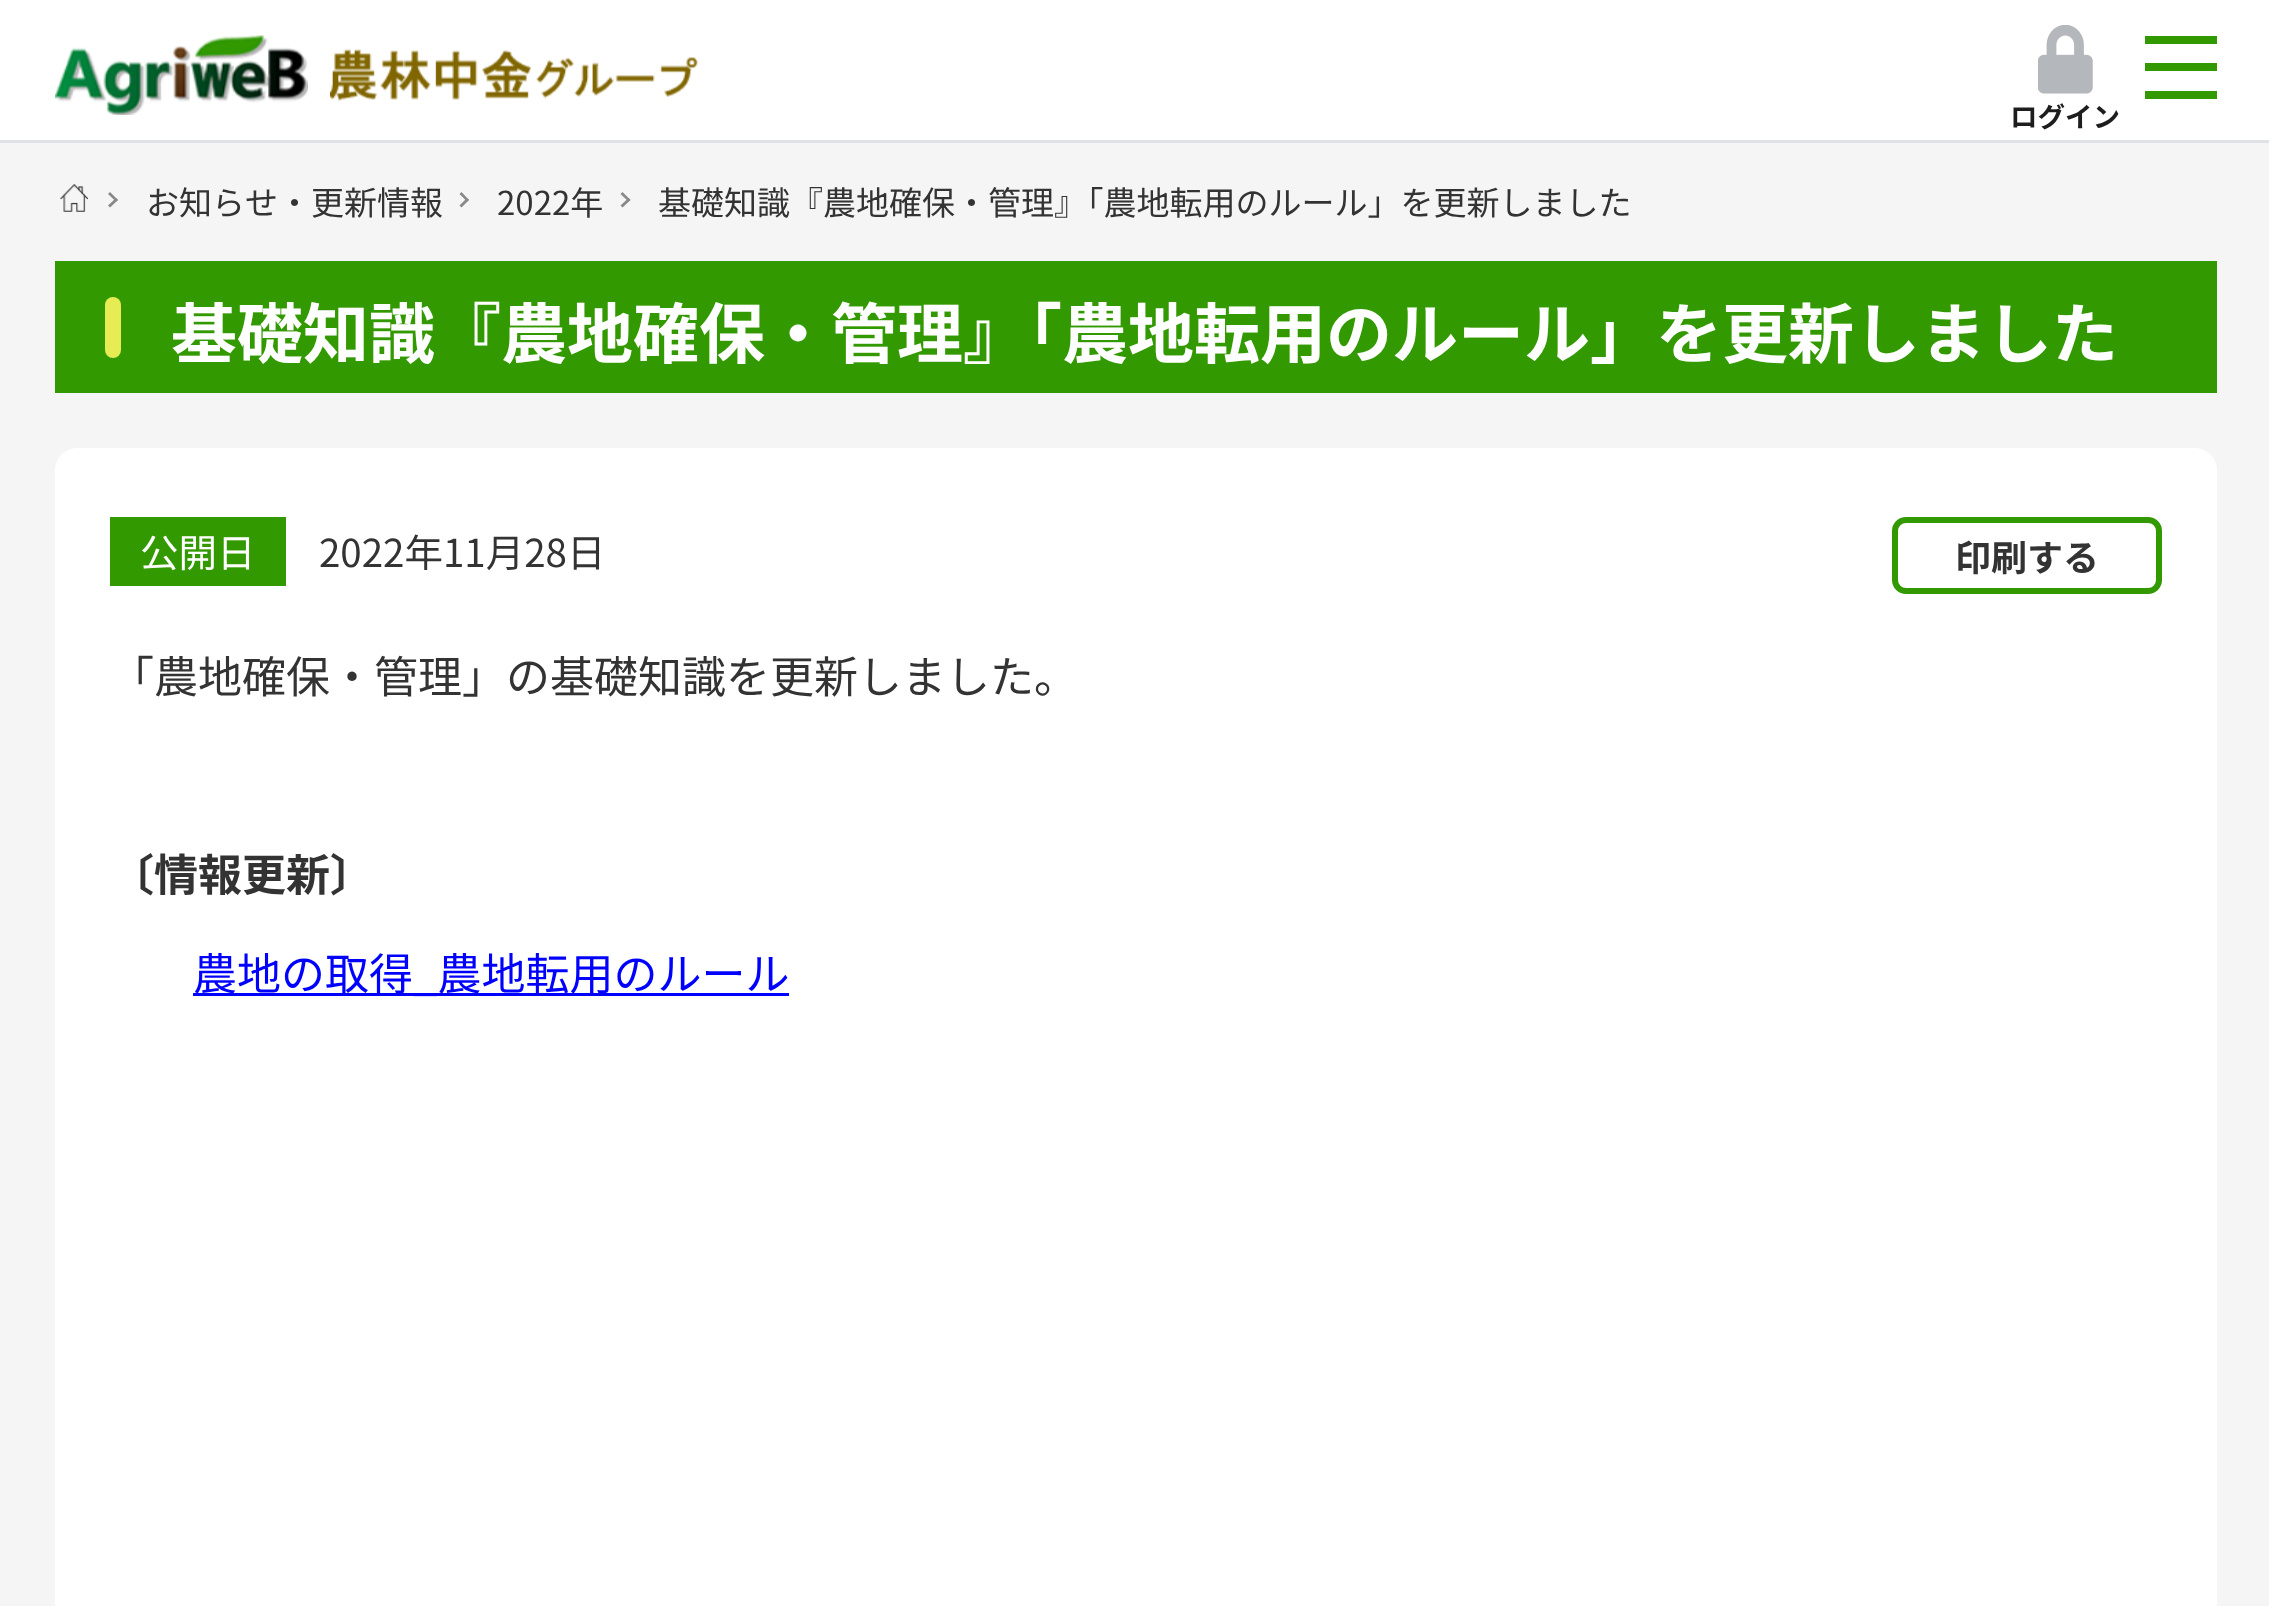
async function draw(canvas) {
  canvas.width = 2269;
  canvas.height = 1606;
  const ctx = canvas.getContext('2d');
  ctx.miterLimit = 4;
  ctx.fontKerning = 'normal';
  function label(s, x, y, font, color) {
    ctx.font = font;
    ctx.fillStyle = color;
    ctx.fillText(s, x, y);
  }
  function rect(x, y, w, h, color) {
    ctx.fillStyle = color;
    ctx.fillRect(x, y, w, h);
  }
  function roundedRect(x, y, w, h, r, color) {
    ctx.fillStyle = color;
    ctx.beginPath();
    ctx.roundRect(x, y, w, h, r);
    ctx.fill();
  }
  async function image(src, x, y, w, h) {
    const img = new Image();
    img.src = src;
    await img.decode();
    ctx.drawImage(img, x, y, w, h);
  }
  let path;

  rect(0, 0, 2269, 1606, '#f5f5f5');
  rect(0, 140, 2269, 3, '#e0e2e7');
  rect(0, 0, 2269, 140, '#fff');
  await image('assets/img1.png', 55, 35, 253, 80);
  await image('assets/img2.png', 330, 48, 368, 53);
  rect(2145, 36, 72, 8, '#390');
  rect(2145, 63, 72, 8, '#390');
  rect(2145, 91, 72, 8, '#390');
  await image('assets/img3.png', 2038, 25, 55, 69);
  label('ログイン', 2010, 127, 'bold 27.5px Noto Sans JP', '#1d1d1d');
  await image('assets/img4.png', 60, 184, 28, 28);
  ctx.fillStyle = '#888';
  path = new Path2D('M110 192L118 200L116 201.5L108 194Z');
  ctx.fill(path);
  path = new Path2D('M116 198L118 200L110 207.5L108 205.5Z');
  ctx.fill(path);
  label('お知らせ・更新情報', 146, 215, '33px Noto Sans JP', '#333');
  ctx.fillStyle = '#888';
  path = new Path2D('M461.5 192L469 200L467 201.5L459.5 194Z');
  ctx.fill(path);
  path = new Path2D('M467 198L469 200L461.5 207.5L459.5 205.5Z');
  ctx.fill(path);
  label('2022年', 497, 215, '33px Noto Sans JP', '#333');
  ctx.fillStyle = '#888';
  path = new Path2D('M622.5 192L630.5 200L628.5 201.5L620.5 194Z');
  ctx.fill(path);
  path = new Path2D('M628.5 198L630.5 200L622.5 207.5L620.5 205.5Z');
  ctx.fill(path);
  label('基礎知識『農地確保・管理』「農地転用のルール」を更新しました', 658, 215, '33px Noto Sans JP', '#333');
  rect(55, 261, 2162, 132, '#390');
  roundedRect(105, 297, 16, 61, 8, '#e7ec54');
  label('基礎知識『農地確保・管理』「農地転用のルール」を更新しました', 171, 358, 'bold 66px Noto Sans JP', '#fff');
  roundedRect(55, 448, 2162, 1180, 22, '#fff');
  rect(110, 517, 176, 69, '#390');
  label('公開日', 140, 567, '38.5px Noto Sans JP', '#fff');
  label('2022年11月28日', 319, 567, '38.5px Noto Sans JP', '#333');
  ctx.beginPath();
  ctx.roundRect(1895, 520, 264, 71, 11);
  ctx.strokeStyle = '#390';
  ctx.lineWidth = 6;
  ctx.stroke();
  label('印刷する', 1955, 571, 'bold 36px Noto Sans JP', '#333');
  label('「農地確保・管理」の基礎知識を更新しました。', 110, 693, '44px Noto Sans JP', '#333');
  label('〔情報更新〕', 110, 891, 'bold 44px Noto Sans JP', '#333');
  rect(193, 993, 596, 3, '#00f');
  label('農地の取得_農地転用のルール', 193, 990, '44px Noto Sans JP', '#00f');
}

draw(document.querySelector('canvas'));
